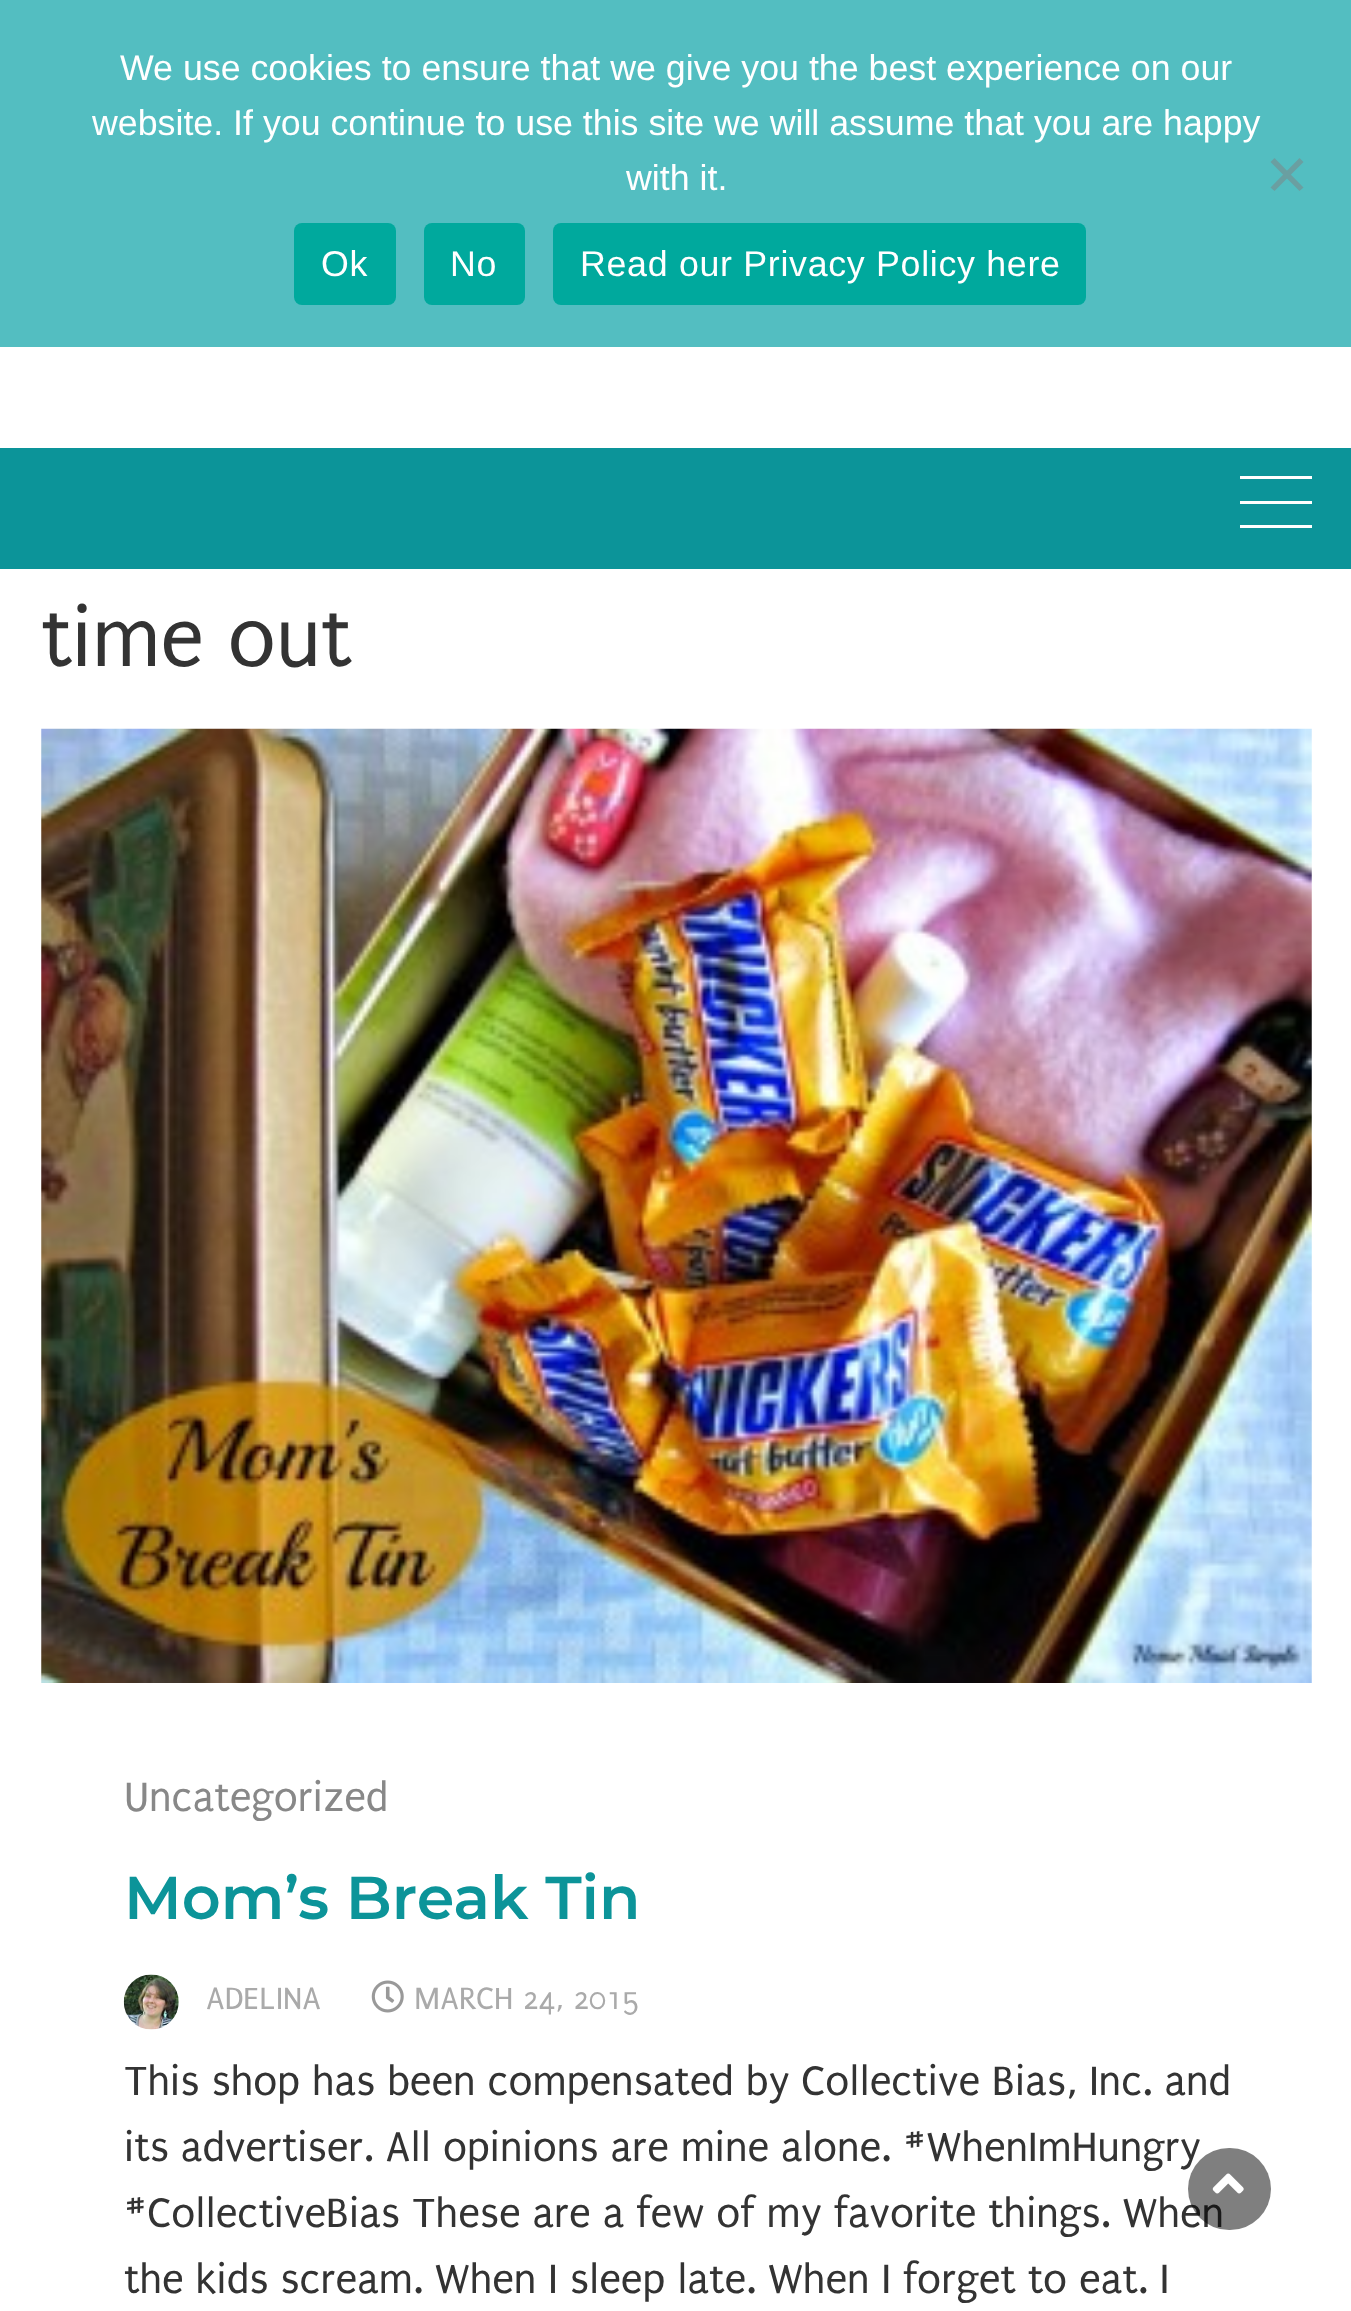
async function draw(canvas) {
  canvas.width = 1351;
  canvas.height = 2311;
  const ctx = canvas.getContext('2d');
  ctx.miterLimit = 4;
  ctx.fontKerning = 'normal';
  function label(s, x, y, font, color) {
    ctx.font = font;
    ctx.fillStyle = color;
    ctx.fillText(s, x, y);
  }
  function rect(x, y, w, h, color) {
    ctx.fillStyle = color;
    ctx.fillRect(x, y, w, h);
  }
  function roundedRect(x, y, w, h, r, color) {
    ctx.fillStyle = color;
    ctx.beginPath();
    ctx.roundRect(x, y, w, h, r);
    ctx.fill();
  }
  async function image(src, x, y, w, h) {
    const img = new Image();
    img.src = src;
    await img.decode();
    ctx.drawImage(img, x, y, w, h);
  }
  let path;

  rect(0, 0, 1351, 2311, '#fff');
  rect(0, 0, 1351, 347, '#53bec1');
  label('We use cookies to ensure that we give you the best experience on our', 120, 80, '35.75px Liberation Sans', '#fff');
  label('website. If you continue to use this site we will assume that you are happy', 92, 135, '35.75px Liberation Sans', '#fff');
  label('with it.', 626, 190, '35.75px Liberation Sans', '#fff');
  ctx.fillStyle = '#6a9fa1';
  path = new Path2D('M1299.5 158L1303.5 162L1274.5 191L1270.5 187.5Z');
  ctx.fill(path);
  path = new Path2D('M1270.5 162L1274.5 158L1303.5 187.5L1299.5 191Z');
  ctx.fill(path);
  roundedRect(294, 223, 102, 82, 8, '#00a99d');
  ctx.letterSpacing = '0.7px';
  label('Ok', 321, 276, '35.75px Liberation Sans', '#fff');
  roundedRect(424, 223, 101, 82, 8, '#00a99d');
  label('No', 450, 276, '35.75px Liberation Sans', '#fff');
  roundedRect(553, 223, 533, 82, 8, '#00a99d');
  label('Read our Privacy Policy here', 580, 276, '35.75px Liberation Sans', '#fff');
  rect(0, 448, 1351, 121, '#0c9499');
  rect(1240, 476, 72, 3, '#fff');
  rect(1240, 501, 72, 3, '#fff');
  rect(1240, 525, 72, 3, '#fff');
  ctx.letterSpacing = '0px';
  label('time out', 41, 666, '88px Puritan', '#333');
  await image('assets/img1.png', 41, 728, 1271, 955);
  label('Uncategorized', 124, 1811, '44px Puritan', '#888');
  label('Mom’s Break Tin', 124, 1919, '600 60.5px Montserrat', '#0c9499');
  await image('assets/img2.png', 123, 1974, 56, 56);
  label('ADELINA', 206, 2009, '33px Puritan', '#aaa');
  await image('assets/img3.png', 371, 1980, 33, 33);
  label('MARCH 24, 2015', 414, 2009, '33px Puritan', '#aaa');
  label('This shop has been compensated by Collective Bias, Inc. and', 124, 2095, '44px Puritan', '#333');
  label('its advertiser. All opinions are mine alone. #WhenImHungry', 124, 2161, '44px Puritan', '#333');
  label('#CollectiveBias These are a few of my favorite things. When', 124, 2227, '44px Puritan', '#333');
  label('the kids scream. When I sleep late. When I forget to eat. I', 124, 2293, '44px Puritan', '#333');
  roundedRect(1188, 2148, 83, 82, 41, '#00000080');
  await image('assets/img4.png', 1212, 2173, 32, 21);
}

draw(document.querySelector('canvas'));
